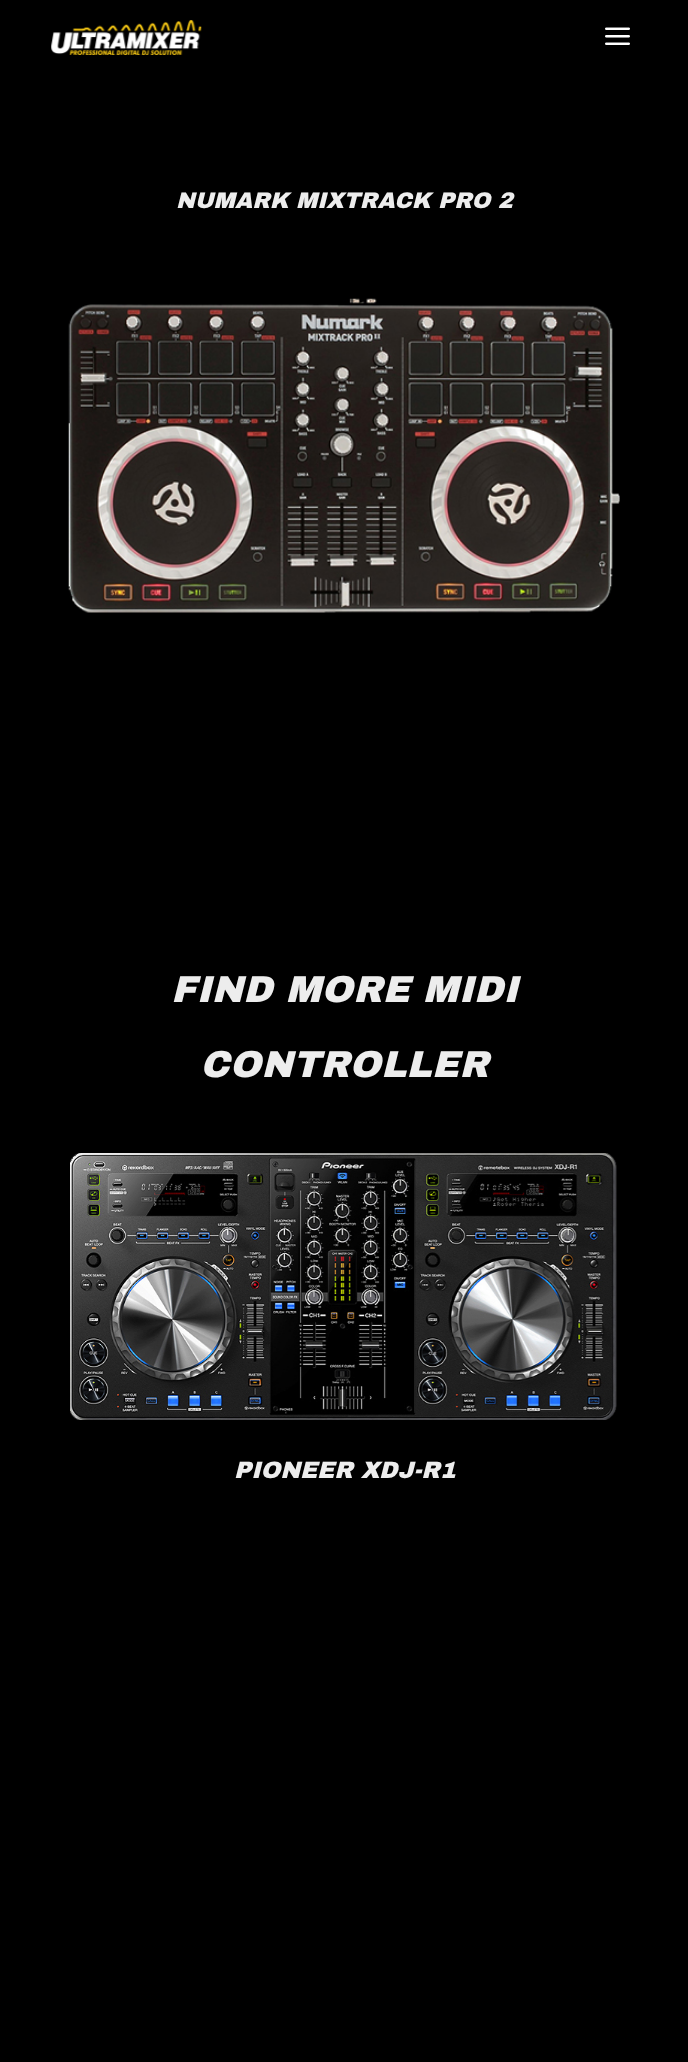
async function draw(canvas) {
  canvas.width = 688;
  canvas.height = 2062;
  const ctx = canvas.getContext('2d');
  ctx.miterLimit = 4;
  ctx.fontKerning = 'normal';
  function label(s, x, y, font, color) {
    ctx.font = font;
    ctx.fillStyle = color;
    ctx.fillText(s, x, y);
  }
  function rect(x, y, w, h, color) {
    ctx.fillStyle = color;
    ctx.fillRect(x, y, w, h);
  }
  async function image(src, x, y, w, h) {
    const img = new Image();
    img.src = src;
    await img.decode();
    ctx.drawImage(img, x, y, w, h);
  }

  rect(0, 0, 688, 2062, '#000');
  await image('assets/img1.png', 51, 20, 151, 35);
  await image('assets/img2.png', 605, 27, 25, 18);
  label('NUMARK MIXTRACK PRO 2', 176, 208, 'italic 900 22.5px Archivo Black', '#ededed');
  await image('assets/img3.png', 68, 298, 552, 315);
  ctx.letterSpacing = '0.4px';
  label('FIND MORE MIDI', 171, 1002, 'italic 900 37.5px Archivo Black', '#ededed');
  label('CONTROLLER', 200, 1077, 'italic 900 37.5px Archivo Black', '#ededed');
  await image('assets/img4.png', 70, 1153, 547, 267);
  ctx.letterSpacing = '0px';
  label('PIONEER XDJ-R1', 234, 1478, 'italic 900 23.75px Archivo Black', '#ededed');
}

draw(document.querySelector('canvas'));
